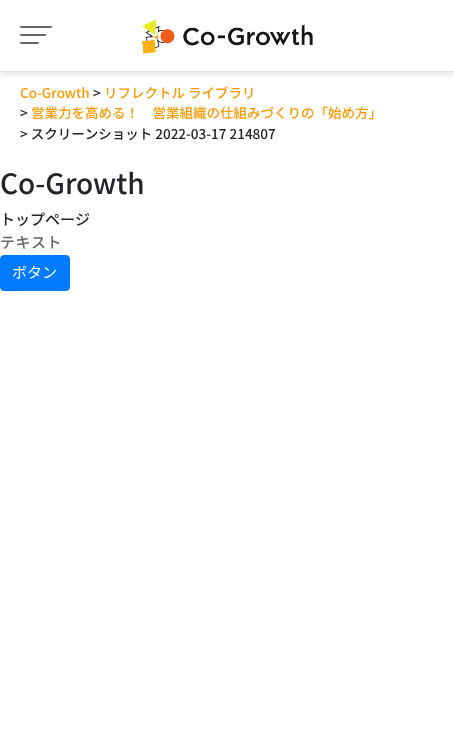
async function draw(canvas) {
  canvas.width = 454;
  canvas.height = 740;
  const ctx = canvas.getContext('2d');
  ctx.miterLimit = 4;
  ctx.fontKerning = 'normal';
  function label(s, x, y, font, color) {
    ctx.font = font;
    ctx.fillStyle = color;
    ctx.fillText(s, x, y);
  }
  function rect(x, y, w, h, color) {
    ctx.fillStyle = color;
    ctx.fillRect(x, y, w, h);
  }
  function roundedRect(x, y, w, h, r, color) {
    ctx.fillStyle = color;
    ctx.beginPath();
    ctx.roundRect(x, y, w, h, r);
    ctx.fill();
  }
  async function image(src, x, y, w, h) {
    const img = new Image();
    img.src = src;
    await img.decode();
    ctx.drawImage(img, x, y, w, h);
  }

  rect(0, 0, 454, 740, '#fff');
  ctx.save();
  ctx.beginPath();
  ctx.rect(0, 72, 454, 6);
  ctx.clip();
  ctx.fillStyle = '#0000001a';
  ctx.filter = 'blur(3px)';
  ctx.beginPath();
  ctx.rect(0, 3, 454, 72);
  ctx.fill();
  ctx.filter = 'none';
  ctx.restore();
  rect(0, 71, 454, 1, '#ddd');
  roundedRect(20, 26, 32, 2, 1, '#666');
  roundedRect(20, 34, 26, 2, 1, '#666');
  roundedRect(20, 42, 19, 2, 1, '#666');
  await image('assets/img1.png', 141, 19, 172, 35);
  label('Co-Growth', 20, 98, '500 13.5px Noto Sans JP', '#f90');
  label('>', 93, 98, '500 13.5px Noto Sans JP', '#212529');
  label('リフレクトル ライブラリ', 104, 98, '500 13.5px Noto Sans JP', '#f90');
  label('>', 20, 118, '500 13.5px Noto Sans JP', '#212529');
  label('営業力を高める！　営業組織の仕組みづくりの「始め方」', 31, 118, '500 13.5px Noto Sans JP', '#f90');
  label('> スクリーンショット 2022-03-17 214807', 20, 139, '500 13.5px Noto Sans JP', '#212529');
  label('Co-Growth', 0, 194, '500 28px Noto Sans JP', '#212529');
  label('トップページ', 0, 225, '500 15px Noto Sans JP', '#212529');
  ctx.letterSpacing = '0.5px';
  label('テキスト', 0, 248, '500 15px Noto Sans JP', '#666');
  ctx.fillStyle = '#007bff';
  ctx.beginPath();
  ctx.roundRect(0.5, 255.5, 69, 35, 3.5);
  ctx.fill();
  ctx.strokeStyle = '#007bff';
  ctx.stroke();
  ctx.letterSpacing = '0px';
  label('ボタン', 12, 278, '15px Noto Sans JP', '#fff');
}

draw(document.querySelector('canvas'));
